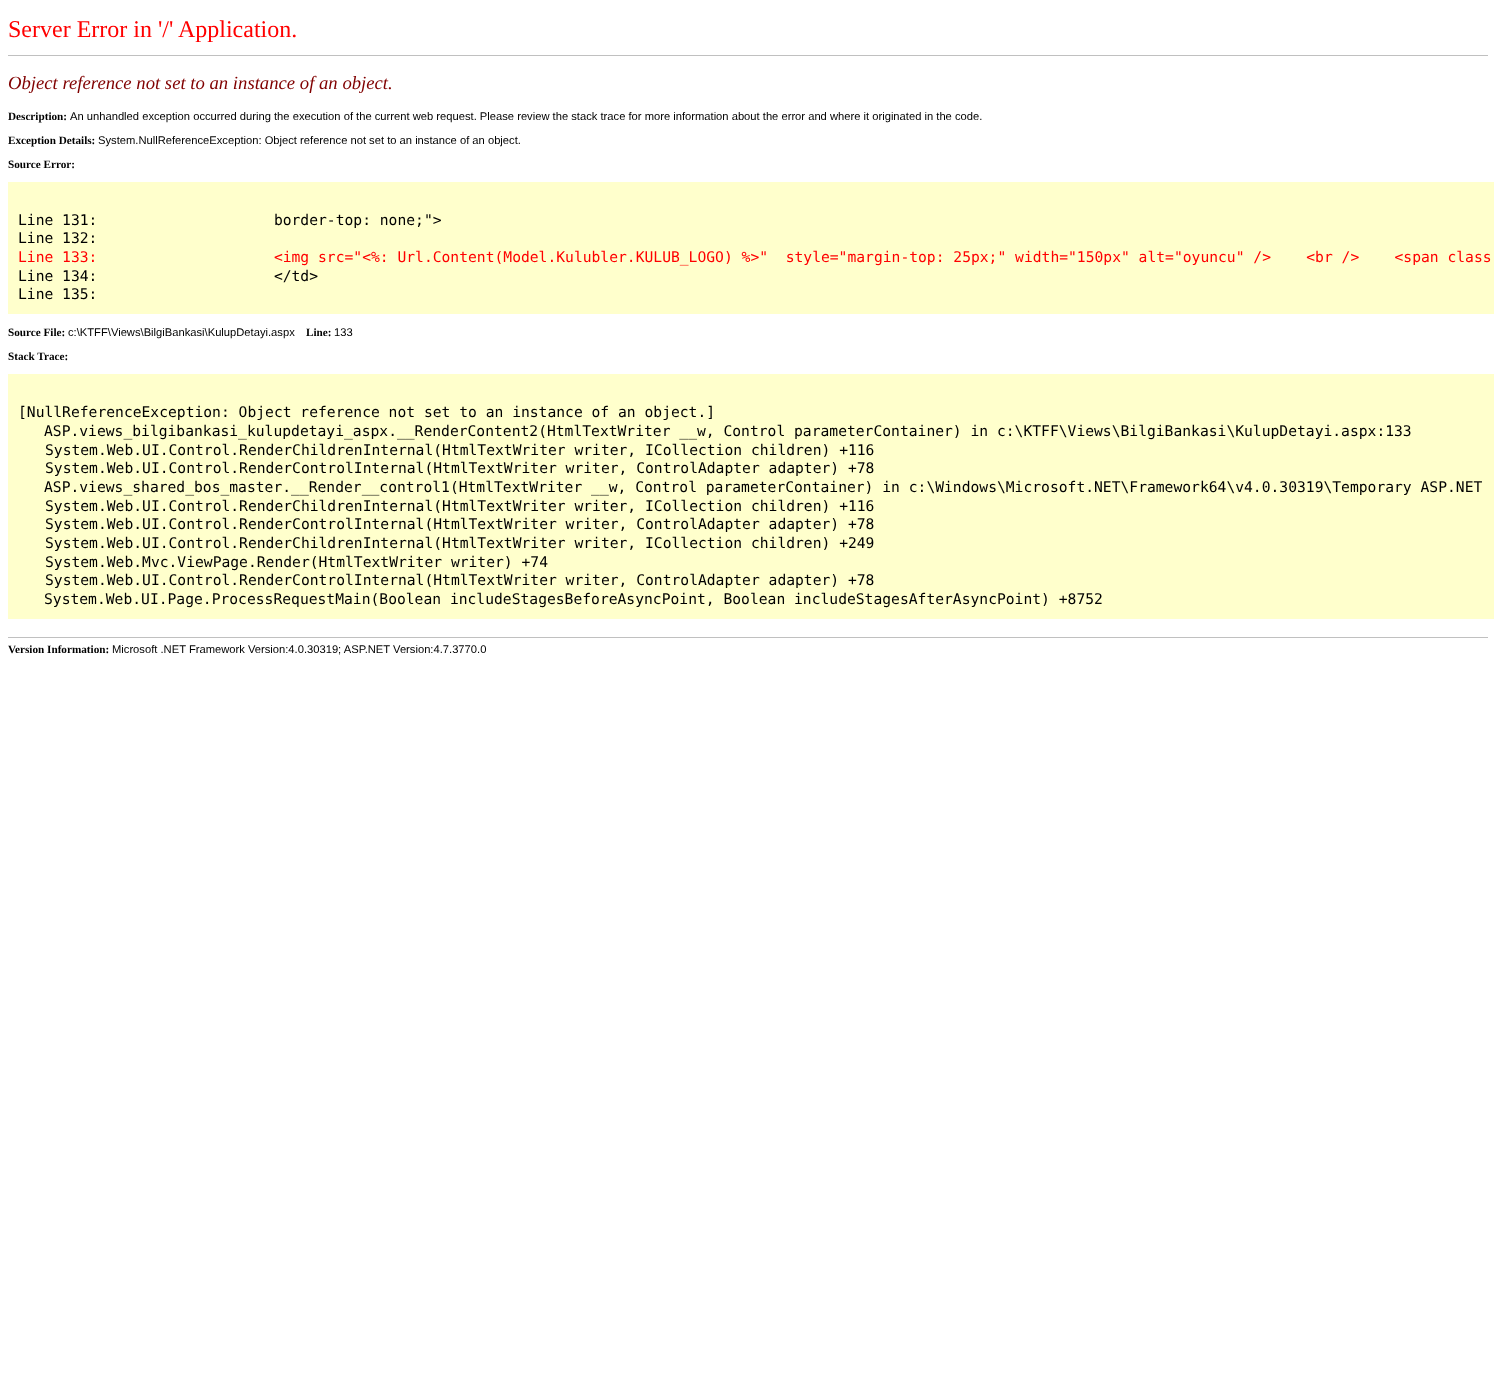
async function draw(canvas) {
  canvas.width = 1494;
  canvas.height = 1396;
  const ctx = canvas.getContext('2d');
  ctx.miterLimit = 4;
  ctx.fontKerning = 'normal';
  function label(s, x, y, font, color) {
    ctx.font = font;
    ctx.fillStyle = color;
    ctx.fillText(s, x, y);
  }
  function rect(x, y, w, h, color) {
    ctx.fillStyle = color;
    ctx.fillRect(x, y, w, h);
  }

  rect(0, 0, 1494, 1396, '#fff');
  label('Server Error in \'/\' Application.', 8, 37, '24px Liberation Serif', '#f00');
  rect(8, 55, 1480, 1, '#c0c0c0');
  label('Object reference not set to an instance of an object.', 8, 89, 'italic 18.7px Liberation Serif', '#800000');
  label('Description:', 8, 120, 'bold 11.2px Liberation Serif', '#000');
  label('An unhandled exception occurred during the execution of the current web request. Please review the stack trace for more information about the error and where it originated in the code.', 70, 120, '11.2px Liberation Sans', '#000');
  label('Exception Details:', 8, 144, 'bold 11.2px Liberation Serif', '#000');
  label('System.NullReferenceException: Object reference not set to an instance of an object.', 98, 144, '11.2px Liberation Sans', '#000');
  label('Source Error:', 8, 168, 'bold 11.2px Liberation Serif', '#000');
  rect(8, 182, 1486, 132, '#ffc');
  label('Line 131:                    border-top: none;">', 18, 225, '14.67px DejaVu Sans Mono', '#000');
  label('Line 132:', 18, 243, '14.67px DejaVu Sans Mono', '#000');
  label('Line 133:                    <img src="<%: Url.Content(Model.Kulubler.KULUB_LOGO) %>"  style="margin-top: 25px;" width="150px" alt="oyuncu" />    <br />    <span class', 18, 262, '14.67px DejaVu Sans Mono', '#f00');
  label('Line 134:                    <\/td>', 18, 281, '14.67px DejaVu Sans Mono', '#000');
  label('Line 135:', 18, 299, '14.67px DejaVu Sans Mono', '#000');
  label('Source File:', 8, 336, 'bold 11.2px Liberation Serif', '#000');
  label('c:\\KTFF\\Views\\BilgiBankasi\\KulupDetayi.aspx', 68, 336, '11.2px Liberation Sans', '#000');
  label('Line:', 306, 336, 'bold 11.2px Liberation Serif', '#000');
  label('133', 334, 336, '11.2px Liberation Sans', '#000');
  label('Stack Trace:', 8, 360, 'bold 11.2px Liberation Serif', '#000');
  rect(8, 374, 1486, 245, '#ffc');
  label('[NullReferenceException: Object reference not set to an instance of an object.]', 18, 417, '14.67px DejaVu Sans Mono', '#000');
  label('ASP.views_bilgibankasi_kulupdetayi_aspx.__RenderContent2(HtmlTextWriter __w, Control parameterContainer) in c:\\KTFF\\Views\\BilgiBankasi\\KulupDetayi.aspx:133', 44, 436, '14.67px DejaVu Sans Mono', '#000');
  label('System.Web.UI.Control.RenderChildrenInternal(HtmlTextWriter writer, ICollection children) +116', 45, 455, '14.67px DejaVu Sans Mono', '#000');
  label('System.Web.UI.Control.RenderControlInternal(HtmlTextWriter writer, ControlAdapter adapter) +78', 45, 473, '14.67px DejaVu Sans Mono', '#000');
  label('ASP.views_shared_bos_master.__Render__control1(HtmlTextWriter __w, Control parameterContainer) in c:\\Windows\\Microsoft.NET\\Framework64\\v4.0.30319\\Temporary ASP.NET', 44, 492, '14.67px DejaVu Sans Mono', '#000');
  label('System.Web.UI.Control.RenderChildrenInternal(HtmlTextWriter writer, ICollection children) +116', 45, 511, '14.67px DejaVu Sans Mono', '#000');
  label('System.Web.UI.Control.RenderControlInternal(HtmlTextWriter writer, ControlAdapter adapter) +78', 45, 529, '14.67px DejaVu Sans Mono', '#000');
  label('System.Web.UI.Control.RenderChildrenInternal(HtmlTextWriter writer, ICollection children) +249', 45, 548, '14.67px DejaVu Sans Mono', '#000');
  label('System.Web.Mvc.ViewPage.Render(HtmlTextWriter writer) +74', 45, 567, '14.67px DejaVu Sans Mono', '#000');
  label('System.Web.UI.Control.RenderControlInternal(HtmlTextWriter writer, ControlAdapter adapter) +78', 45, 585, '14.67px DejaVu Sans Mono', '#000');
  label('System.Web.UI.Page.ProcessRequestMain(Boolean includeStagesBeforeAsyncPoint, Boolean includeStagesAfterAsyncPoint) +8752', 44, 604, '14.67px DejaVu Sans Mono', '#000');
  rect(8, 637, 1480, 1, '#c0c0c0');
  label('Version Information:', 8, 653, 'bold 11.2px Liberation Serif', '#000');
  label('Microsoft .NET Framework Version:4.0.30319; ASP.NET Version:4.7.3770.0', 112, 653, '11.2px Liberation Sans', '#000');
}

draw(document.querySelector('canvas'));
